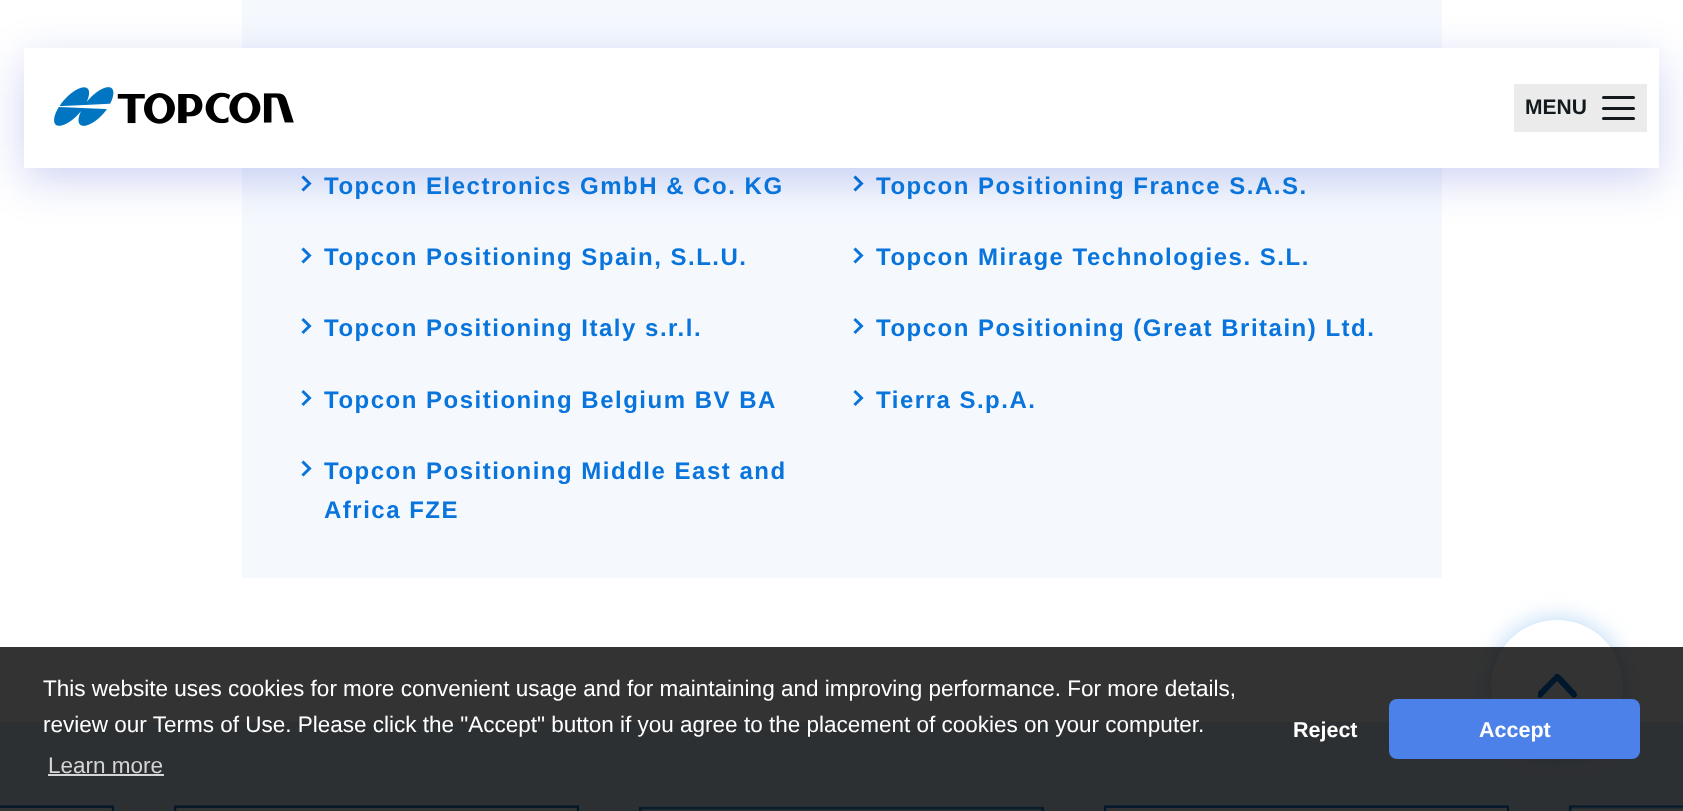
async function draw(canvas) {
  canvas.width = 1683;
  canvas.height = 811;
  const ctx = canvas.getContext('2d');
  ctx.miterLimit = 4;
  ctx.fontKerning = 'normal';
  function label(s, x, y, font, color) {
    ctx.font = font;
    ctx.fillStyle = color;
    ctx.fillText(s, x, y);
  }
  function rect(x, y, w, h, color) {
    ctx.fillStyle = color;
    ctx.fillRect(x, y, w, h);
  }
  function roundedRect(x, y, w, h, r, color) {
    ctx.fillStyle = color;
    ctx.beginPath();
    ctx.roundRect(x, y, w, h, r);
    ctx.fill();
  }
  async function image(src, x, y, w, h) {
    const img = new Image();
    img.src = src;
    await img.decode();
    ctx.drawImage(img, x, y, w, h);
  }
  let path;

  rect(0, 0, 1683, 811, '#fff');
  rect(242, 0, 1200, 578, '#f5f9fe');
  path = new Path2D('M303.5 177.5L309.5 183.5M303.5 189.5L309.5 183.5');
  ctx.strokeStyle = '#0874dc';
  ctx.lineWidth = 3;
  ctx.lineCap = 'square';
  ctx.stroke(path);
  path = new Path2D('M855.5 177.5L861.5 183.5M855.5 189.5L861.5 183.5');
  ctx.stroke(path);
  ctx.fillStyle = '#0c21c333';
  ctx.filter = 'blur(22px)';
  ctx.beginPath();
  ctx.rect(24, 60, 1635, 120);
  ctx.fill();
  ctx.filter = 'none';
  rect(24, 48, 1635, 120, '#fff');
  await image('assets/img1.png', 54, 87, 240, 39);
  rect(1514, 84, 133, 48, '#ebebeb');
  label('MENU', 1525, 114, 'bold 21px Liberation Sans', '#121a1d');
  roundedRect(1602, 96, 33, 3, 1.5, '#121a1d');
  roundedRect(1602, 107, 33, 3, 1.5, '#121a1d');
  roundedRect(1602, 117, 33, 3, 1.5, '#121a1d');
  ctx.letterSpacing = '1.5px';
  label('Topcon Electronics GmbH & Co. KG', 324, 194, 'bold 24px Liberation Sans', '#0874dc');
  label('Topcon Positioning France S.A.S.', 876, 194, 'bold 24px Liberation Sans', '#0874dc');
  path = new Path2D('M303.5 249.5L309.5 255.5M303.5 261.5L309.5 255.5');
  ctx.stroke(path);
  label('Topcon Positioning Spain, S.L.U.', 324, 265, 'bold 24px Liberation Sans', '#0874dc');
  path = new Path2D('M855.5 249.5L861.5 255.5M855.5 261.5L861.5 255.5');
  ctx.stroke(path);
  label('Topcon Mirage Technologies. S.L.', 876, 265, 'bold 24px Liberation Sans', '#0874dc');
  path = new Path2D('M303.5 320L309.5 326M303.5 332L309.5 326');
  ctx.stroke(path);
  label('Topcon Positioning Italy s.r.l.', 324, 336, 'bold 24px Liberation Sans', '#0874dc');
  path = new Path2D('M855.5 320L861.5 326M855.5 332L861.5 326');
  ctx.stroke(path);
  label('Topcon Positioning (Great Britain) Ltd.', 876, 336, 'bold 24px Liberation Sans', '#0874dc');
  path = new Path2D('M303.5 392L309.5 398M303.5 404L309.5 398');
  ctx.stroke(path);
  label('Topcon Positioning Belgium BV BA', 324, 408, 'bold 24px Liberation Sans', '#0874dc');
  path = new Path2D('M855.5 392L861.5 398M855.5 404L861.5 398');
  ctx.stroke(path);
  label('Tierra S.p.A.', 876, 408, 'bold 24px Liberation Sans', '#0874dc');
  path = new Path2D('M303.5 462.5L309.5 468.5M303.5 474.5L309.5 468.5');
  ctx.stroke(path);
  label('Topcon Positioning Middle East and', 324, 479, 'bold 24px Liberation Sans', '#0874dc');
  label('Africa FZE', 324, 518, 'bold 24px Liberation Sans', '#0874dc');
  rect(0, 722, 1683, 89, '#e2edf7');
  ctx.fillStyle = '#0874dc4d';
  ctx.filter = 'blur(12px)';
  ctx.beginPath();
  ctx.roundRect(1491, 620, 132, 132, 66);
  ctx.fill();
  ctx.filter = 'none';
  ctx.fillStyle = '#fff';
  ctx.beginPath();
  ctx.arc(1557, 686, 66, 0, 2 * Math.PI);
  ctx.fill();
  ctx.save();
  ctx.beginPath();
  ctx.rect(1538, 674, 40, 24);
  ctx.clip();
  ctx.fillStyle = '#0874dc';
  path = new Path2D('M1557 681L1542 697C1539 699 1536 696 1537 693L1556 674C1558 672 1560 676 1562 677L1573 689C1575 691 1579 694 1576 697C1575 698 1573 698 1572 697Z');
  ctx.fill(path);
  ctx.restore();
  await image('assets/img2.png', 0, 805, 114, 6);
  await image('assets/img3.png', 174, 805, 405, 6);
  await image('assets/img4.png', 639, 806, 405, 5);
  await image('assets/img5.png', 1104, 805, 405, 6);
  await image('assets/img6.png', 1569, 805, 114, 6);
  rect(0, 647, 1683, 164, '#000000cc');
  ctx.letterSpacing = '0px';
  label('This website uses cookies for more convenient usage and for maintaining and improving performance. For more details,', 43, 696, '22.5px Liberation Sans', '#fff');
  label('review our Terms of Use. Please click the "Accept" button if you agree to the placement of cookies on your computer.', 43, 732, '22.5px Liberation Sans', '#fff');
  label('Learn more', 48, 773, '22.5px Liberation Sans', '#d5d5d6');
  rect(48, 774, 116, 2, '#d5d5d6');
  label('Reject', 1293, 737, 'bold 21.5px Liberation Sans', '#fff');
  roundedRect(1389, 699, 251, 60, 8, '#4b81e8');
  label('Accept', 1479, 737, 'bold 21.5px Liberation Sans', '#fff');
}

draw(document.querySelector('canvas'));
